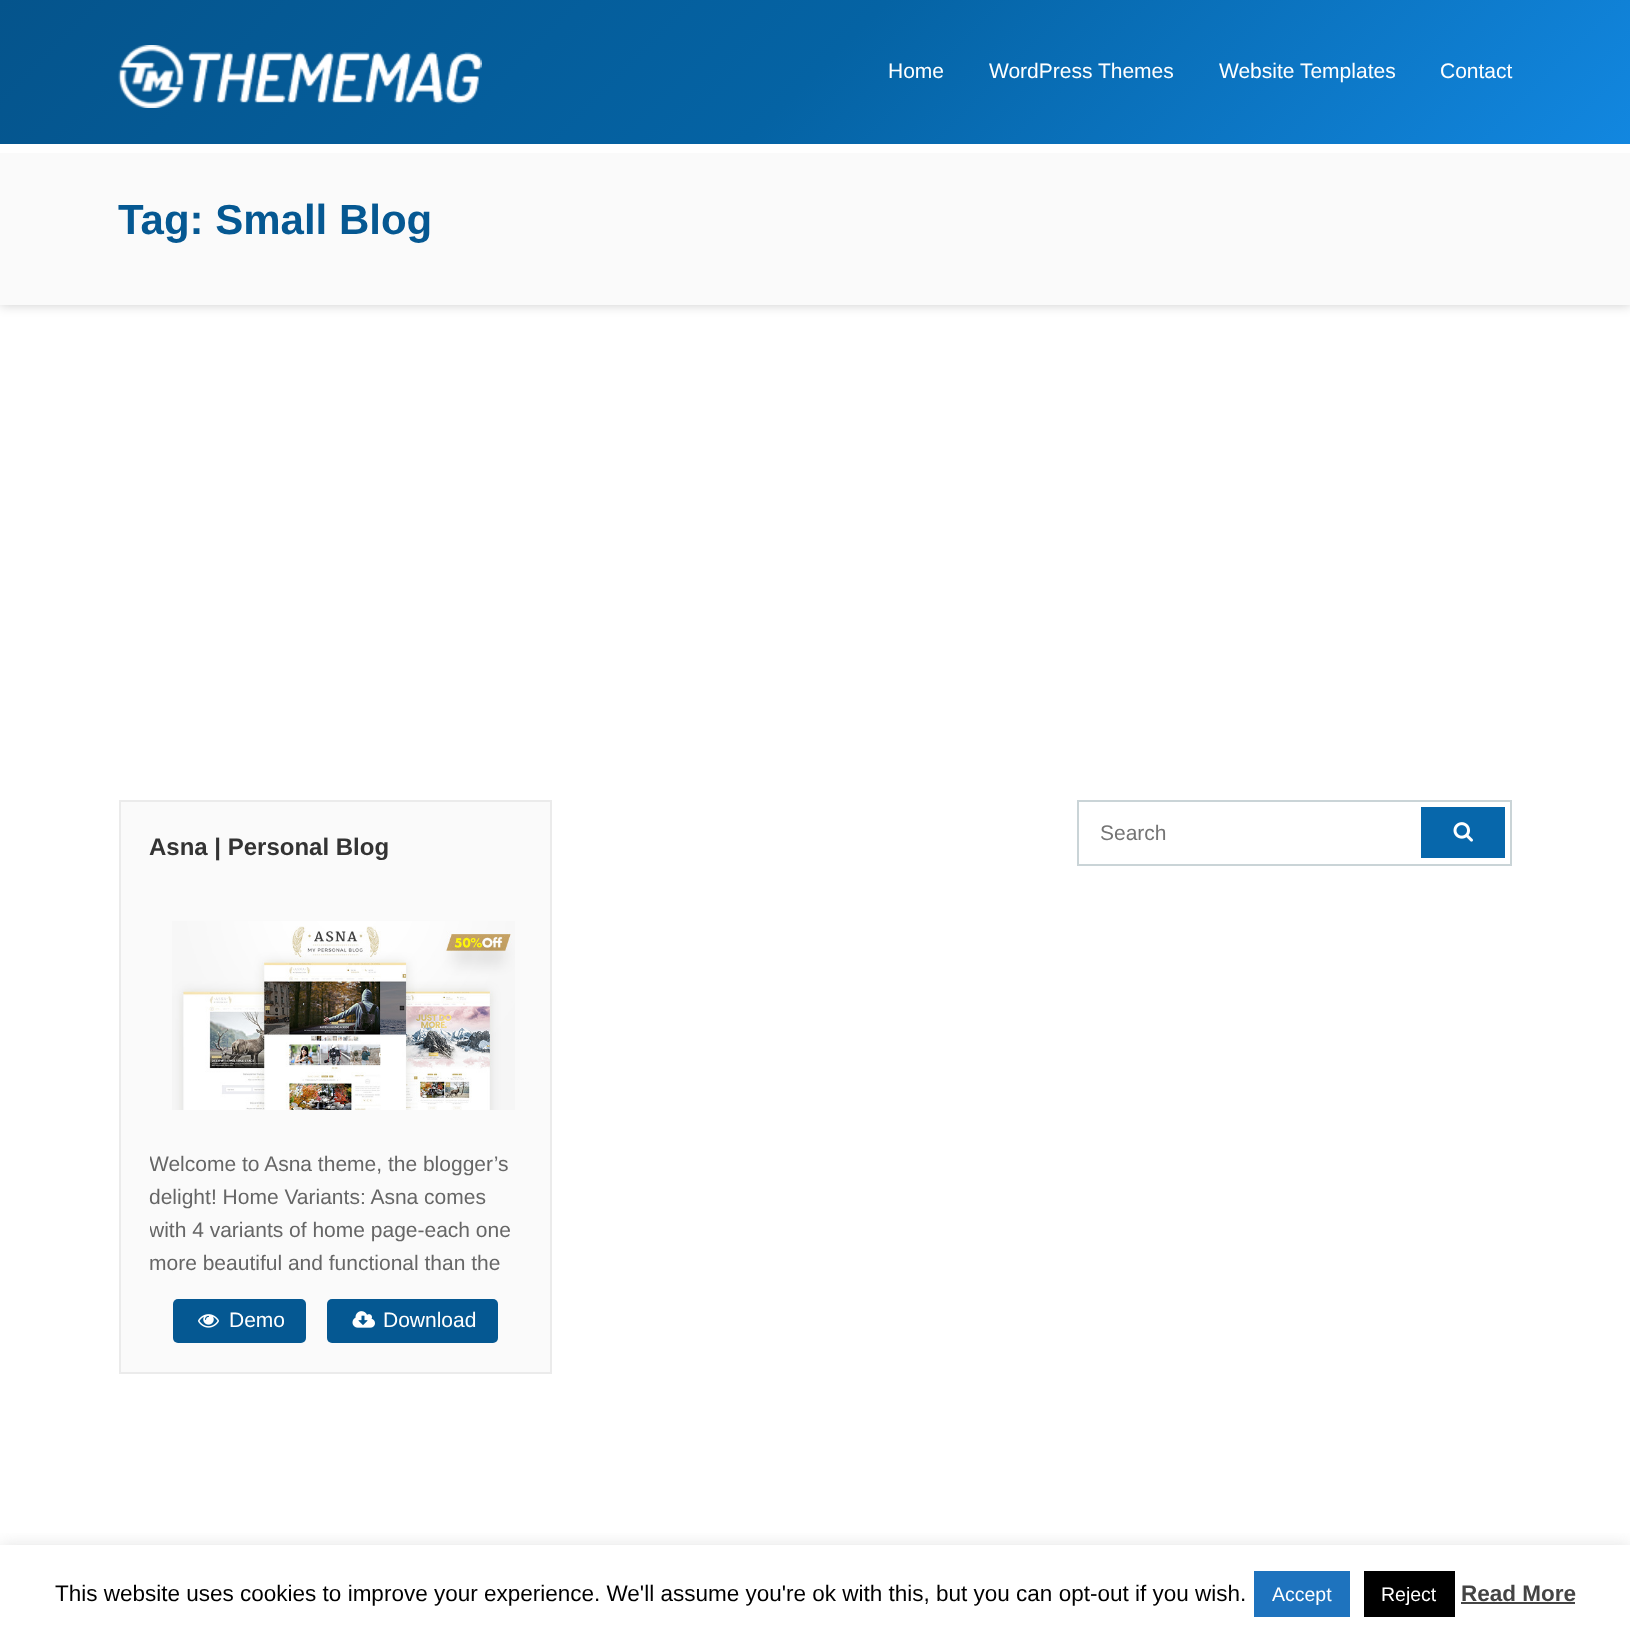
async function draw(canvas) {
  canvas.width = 1630;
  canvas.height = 1635;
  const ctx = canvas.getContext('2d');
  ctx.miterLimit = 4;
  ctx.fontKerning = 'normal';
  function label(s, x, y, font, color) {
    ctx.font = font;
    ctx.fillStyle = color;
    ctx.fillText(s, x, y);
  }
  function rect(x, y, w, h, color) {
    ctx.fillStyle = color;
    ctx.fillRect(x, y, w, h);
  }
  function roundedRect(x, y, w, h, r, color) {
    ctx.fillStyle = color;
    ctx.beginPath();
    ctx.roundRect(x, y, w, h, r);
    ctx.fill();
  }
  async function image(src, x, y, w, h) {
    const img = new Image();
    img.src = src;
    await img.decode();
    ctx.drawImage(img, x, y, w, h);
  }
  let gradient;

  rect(0, 0, 1630, 1635, '#fff');
  ctx.fillStyle = '#00000033';
  ctx.filter = 'blur(6px)';
  ctx.beginPath();
  ctx.rect(0, 153, 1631, 152);
  ctx.fill();
  ctx.filter = 'none';
  gradient = ctx.createLinearGradient(372, -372, 1259, 516);
  gradient.addColorStop(0, '#05548c');
  gradient.addColorStop(0.5, '#0563a4');
  gradient.addColorStop(1, '#1287e0');
  ctx.fillStyle = gradient;
  ctx.fillRect(0, 0, 1630, 144);
  rect(0, 144, 1630, 9, '#fff');
  await image('assets/img1.png', 118, 45, 364, 63);
  label('Home', 888, 78, '21px Liberation Sans', '#fff');
  label('WordPress Themes', 989, 78, '21px Liberation Sans', '#fff');
  label('Website Templates', 1219, 78, '21px Liberation Sans', '#fff');
  label('Contact', 1440, 78, '21px Liberation Sans', '#fff');
  rect(0, 153, 1630, 152, '#fafafa');
  label('Tag: Small Blog', 118, 234, 'bold 42px Liberation Sans', '#055892');
  ctx.strokeStyle = '#cad4d7';
  ctx.lineWidth = 2;
  ctx.strokeRect(1078, 801, 433, 64);
  label('Search', 1100, 840, '21px Liberation Sans', '#757575');
  rect(1421, 807, 84, 51, '#0767ab');
  await image('assets/img2.png', 1453, 822, 20, 20);
  ctx.fillStyle = '#fafafa';
  ctx.beginPath();
  ctx.rect(120, 801, 431, 572);
  ctx.fill();
  ctx.strokeStyle = '#ebebeb';
  ctx.stroke();
  label('Asna | Personal Blog', 149, 855, 'bold 24px Liberation Sans', '#333');
  await image('assets/img3.png', 172, 921, 343, 189);
  ctx.save();
  ctx.beginPath();
  ctx.rect(150, 1148, 371, 129);
  ctx.clip();
  label('Welcome to Asna theme, the blogger’s', 149, 1171, '21px Liberation Sans', '#666');
  ctx.restore();
  label('delight! Home Variants: Asna comes', 149, 1204, '21px Liberation Sans', '#666');
  ctx.save();
  ctx.beginPath();
  ctx.rect(150, 1148, 371, 129);
  ctx.clip();
  label('with 4 variants of home page-each one', 149, 1237, '21px Liberation Sans', '#666');
  ctx.restore();
  label('more beautiful and functional than the', 149, 1270, '21px Liberation Sans', '#666');
  roundedRect(173, 1299, 133, 44, 5, '#055892');
  await image('assets/img4.png', 198, 1314, 21, 14);
  label('Demo', 229, 1327, '21px Liberation Sans', '#fff');
  roundedRect(327, 1299, 171, 44, 5, '#055892');
  await image('assets/img5.png', 352, 1311, 23, 17);
  label('Download', 383, 1327, '21px Liberation Sans', '#fff');
  ctx.save();
  ctx.beginPath();
  ctx.rect(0, 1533, 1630, 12);
  ctx.clip();
  ctx.fillStyle = '#acabab4d';
  ctx.filter = 'blur(7.5px)';
  ctx.beginPath();
  ctx.rect(0, 1544, 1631, 90);
  ctx.fill();
  ctx.filter = 'none';
  ctx.restore();
  label('This website uses cookies to improve your experience. We\'ll assume you\'re ok with this, but you can opt-out if you wish.', 55, 1601, '22.5px Liberation Sans', '#000');
  rect(1254, 1571, 96, 46, '#1e73be');
  label('Accept', 1272, 1601, '19.5px Liberation Sans', '#fff');
  rect(1364, 1571, 91, 46, '#000');
  label('Reject', 1381, 1601, '19.5px Liberation Sans', '#fff');
  label('Read More', 1461, 1601, 'bold 22.5px Liberation Sans', '#444');
  rect(1461, 1602, 114, 2, '#444');
}

draw(document.querySelector('canvas'));
